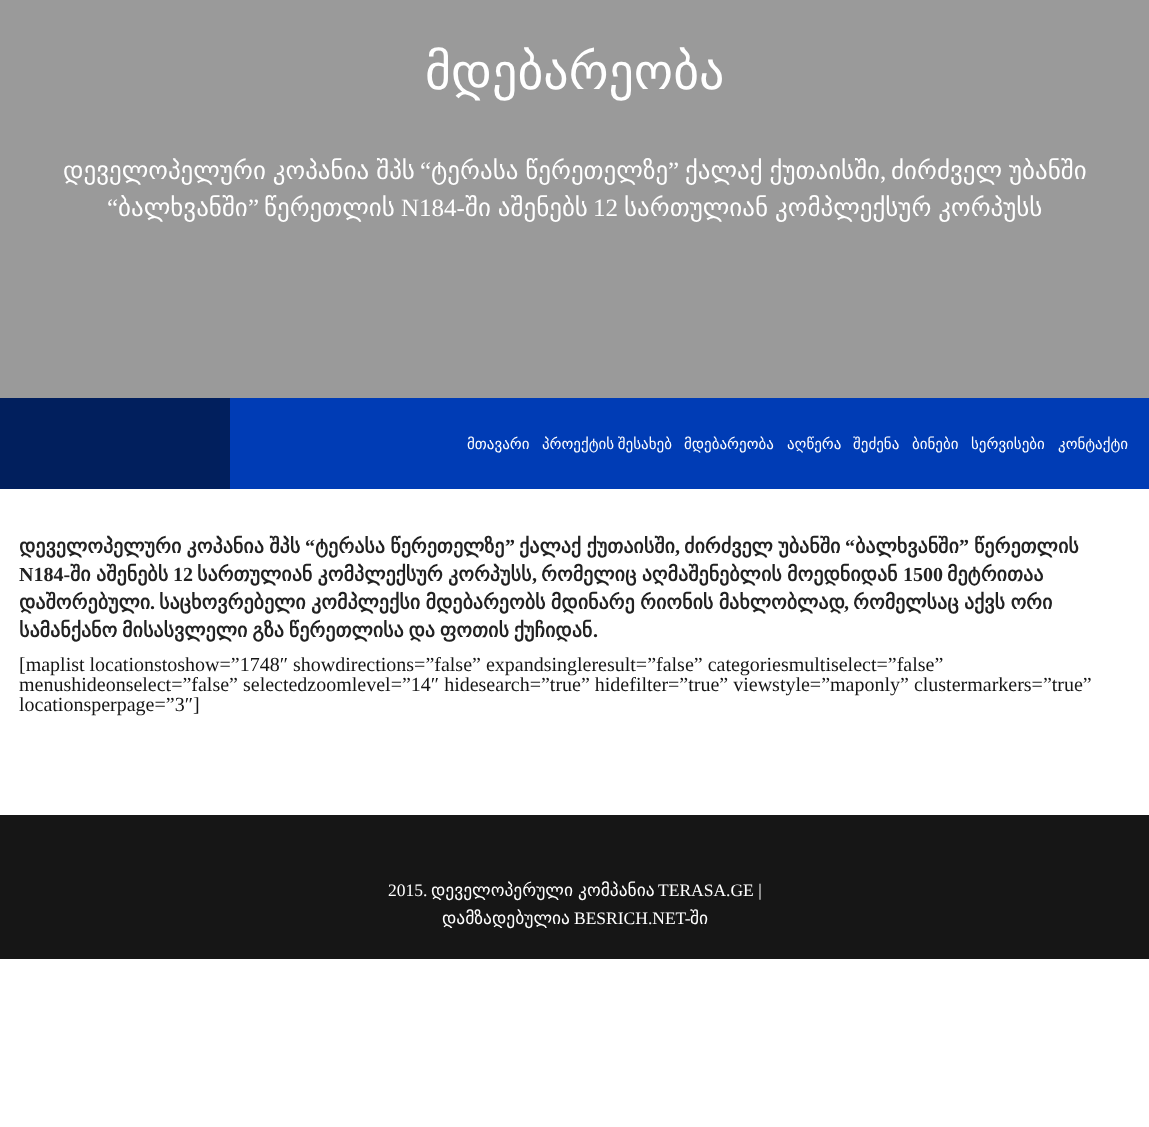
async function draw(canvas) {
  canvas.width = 1149;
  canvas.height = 1127;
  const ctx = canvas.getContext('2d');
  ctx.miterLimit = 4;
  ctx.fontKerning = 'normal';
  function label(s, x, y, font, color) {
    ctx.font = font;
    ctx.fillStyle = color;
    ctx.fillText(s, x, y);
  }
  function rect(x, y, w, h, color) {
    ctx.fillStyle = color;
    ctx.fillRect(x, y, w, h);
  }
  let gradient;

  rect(0, 0, 1149, 1127, '#fff');
  rect(0, 0, 1149, 398, '#9a9a9a');
  label('მდებარეობა', 425, 89, '50px DejaVu Sans', '#fff');
  ctx.wordSpacing = '-1px';
  label('დეველოპელური კოპანია შპს', 63, 179, '25px DejaVu Sans', '#fff');
  ctx.wordSpacing = '0px';
  label('“', 420, 179, '25px Liberation Serif', '#fff');
  ctx.wordSpacing = '-1px';
  label('ტერასა წერეთელზე', 431, 179, '25px DejaVu Sans', '#fff');
  ctx.wordSpacing = '0px';
  label('”', 668, 179, '25px Liberation Serif', '#fff');
  ctx.wordSpacing = '-1px';
  label('ქალაქ ქუთაისში', 685, 179, '25px DejaVu Sans', '#fff');
  label('ძირძველ უბანში', 891, 179, '25px DejaVu Sans', '#fff');
  ctx.wordSpacing = '0px';
  label(',', 880, 179, '25px Liberation Serif', '#fff');
  label('“', 107, 216, '25px Liberation Serif', '#fff');
  label('ბალხვანში', 118, 216, '25px DejaVu Sans', '#fff');
  label('”', 248, 216, '25px Liberation Serif', '#fff');
  label('წერეთლის', 264, 216, '25px DejaVu Sans', '#fff');
  label('N184-', 401, 216, '25px Liberation Serif', '#fff');
  ctx.wordSpacing = '-1px';
  label('ში აშენებს', 465, 216, '25px DejaVu Sans', '#fff');
  ctx.wordSpacing = '0px';
  label('12', 593, 216, '25px Liberation Serif', '#fff');
  ctx.wordSpacing = '-1px';
  label('სართულიან კომპლექსურ კორპუსს', 624, 216, '25px DejaVu Sans', '#fff');
  gradient = ctx.createLinearGradient(0, 443, 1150, 443);
  gradient.addColorStop(0.03, '#011f5d');
  gradient.addColorStop(0.49, '#011f5d');
  gradient.addColorStop(0.5, '#9a9a9a');
  gradient.addColorStop(1, '#9a9a9a');
  ctx.fillStyle = gradient;
  ctx.fillRect(0, 398, 230, 91);
  rect(230, 398, 919, 91, '#003cb5');
  ctx.wordSpacing = '0px';
  label('მთავარი', 467, 449, '15px DejaVu Sans', '#fff');
  ctx.wordSpacing = '-1px';
  label('პროექტის შესახებ', 542, 449, '15px DejaVu Sans', '#fff');
  ctx.wordSpacing = '0px';
  label('მდებარეობა', 684, 449, '15px DejaVu Sans', '#fff');
  label('აღწერა', 787, 449, '15px DejaVu Sans', '#fff');
  label('შეძენა', 853, 449, '15px DejaVu Sans', '#fff');
  label('ბინები', 912, 449, '15px DejaVu Sans', '#fff');
  label('სერვისები', 971, 449, '15px DejaVu Sans', '#fff');
  label('კონტაქტი', 1058, 449, '15px DejaVu Sans', '#fff');
  ctx.wordSpacing = '-1px';
  label('დეველოპელური კოპანია შპს', 19, 553, 'bold 20px DejaVu Sans', '#222');
  ctx.wordSpacing = '0px';
  label('“', 305, 553, 'bold 20px Liberation Serif', '#222');
  ctx.wordSpacing = '-1px';
  label('ტერასა წერეთელზე', 315, 553, 'bold 20px DejaVu Sans', '#222');
  ctx.wordSpacing = '0px';
  label('”', 505, 553, 'bold 20px Liberation Serif', '#222');
  ctx.wordSpacing = '-1px';
  label('ქალაქ ქუთაისში', 519, 553, 'bold 20px DejaVu Sans', '#222');
  label('ძირძველ უბანში', 684, 553, 'bold 20px DejaVu Sans', '#222');
  ctx.wordSpacing = '0px';
  label('“', 845, 553, 'bold 20px Liberation Serif', '#222');
  label('ბალხვანში', 855, 553, 'bold 20px DejaVu Sans', '#222');
  label('”', 959, 553, 'bold 20px Liberation Serif', '#222');
  label('წერეთლის', 974, 553, 'bold 20px DejaVu Sans', '#222');
  label(',', 675, 553, 'bold 20px Liberation Serif', '#222');
  label('N184-', 19, 581, 'bold 20px Liberation Serif', '#222');
  ctx.wordSpacing = '-1px';
  label('ში აშენებს', 70, 581, 'bold 20px DejaVu Sans', '#222');
  ctx.wordSpacing = '0px';
  label('12', 173, 581, 'bold 20px Liberation Serif', '#222');
  ctx.wordSpacing = '-1px';
  label('სართულიან კომპლექსურ კორპუსს', 197, 581, 'bold 20px DejaVu Sans', '#222');
  ctx.wordSpacing = '0px';
  label(',', 532, 581, 'bold 20px Liberation Serif', '#222');
  ctx.wordSpacing = '-1px';
  label('რომელიც აღმაშენებლის მოედნიდან', 541, 581, 'bold 20px DejaVu Sans', '#222');
  ctx.wordSpacing = '0px';
  label('1500', 903, 581, 'bold 20px Liberation Serif', '#222');
  label('მეტრითაა', 947, 581, 'bold 20px DejaVu Sans', '#222');
  label('დაშორებული', 19, 609, 'bold 20px DejaVu Sans', '#222');
  label('.', 150, 609, 'bold 20px Liberation Serif', '#222');
  ctx.wordSpacing = '-1px';
  label('საცხოვრებელი კომპლექსი მდებარეობს მდინარე რიონის მახლობლად', 159, 609, 'bold 20px DejaVu Sans', '#222');
  ctx.wordSpacing = '0px';
  label(',', 844, 609, 'bold 20px Liberation Serif', '#222');
  ctx.wordSpacing = '-1px';
  label('რომელსაც აქვს ორი', 853, 609, 'bold 20px DejaVu Sans', '#222');
  ctx.wordSpacing = '-1.5px';
  label('სამანქანო მისასვლელი გზა წერეთლისა და ფოთის ქუჩიდან', 19, 637, 'bold 20px DejaVu Sans', '#222');
  ctx.wordSpacing = '0px';
  label('.', 593, 637, 'bold 20px Liberation Serif', '#222');
  label('[maplist locationstoshow=”1748″ showdirections=”false” expandsingleresult=”false” categoriesmultiselect=”false”', 19, 671, '20px Liberation Serif', '#161616');
  label('menushideonselect=”false” selectedzoomlevel=”14″ hidesearch=”true” hidefilter=”true” viewstyle=”maponly” clustermarkers=”true”', 19, 691, '20px Liberation Serif', '#161616');
  label('locationsperpage=”3″]', 19, 711, '20px Liberation Serif', '#161616');
  rect(0, 815, 1149, 144, '#161616');
  label('2015.', 388, 896, '17.5px Liberation Serif', '#fff');
  label('დეველოპერული', 431, 896, '17.5px DejaVu Sans', '#fff');
  label('კომპანია', 578, 896, '17.5px DejaVu Sans', '#fff');
  label('TERASA.GE |', 658, 896, '17.5px Liberation Serif', '#fff');
  label('დამზადებულია', 442, 924, '17.5px DejaVu Sans', '#fff');
  label('BESRICH.NET-', 574, 924, '17.5px Liberation Serif', '#fff');
  label('ში', 690, 924, '17.5px DejaVu Sans', '#fff');
}

draw(document.querySelector('canvas'));
